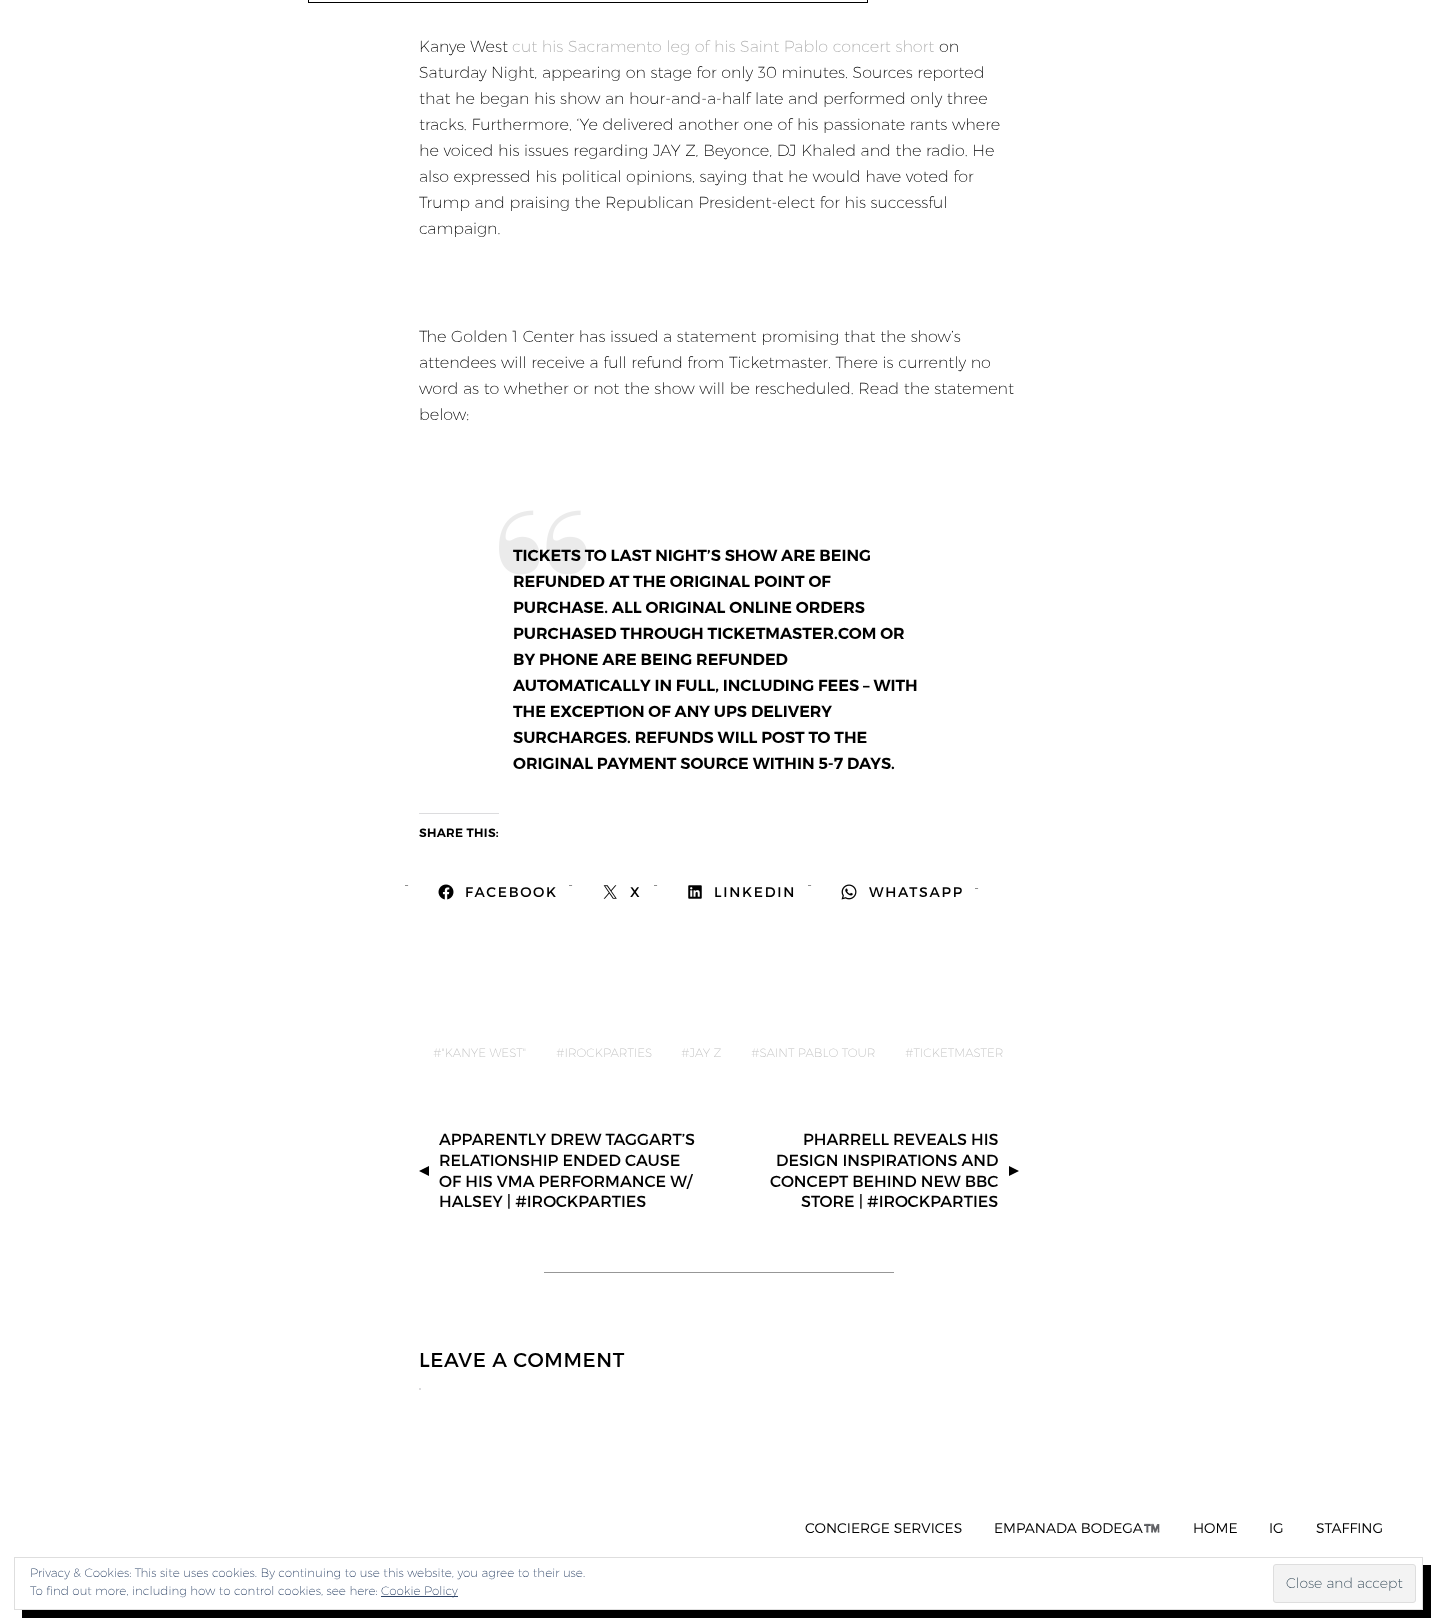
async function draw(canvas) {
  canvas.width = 1437;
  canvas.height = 1624;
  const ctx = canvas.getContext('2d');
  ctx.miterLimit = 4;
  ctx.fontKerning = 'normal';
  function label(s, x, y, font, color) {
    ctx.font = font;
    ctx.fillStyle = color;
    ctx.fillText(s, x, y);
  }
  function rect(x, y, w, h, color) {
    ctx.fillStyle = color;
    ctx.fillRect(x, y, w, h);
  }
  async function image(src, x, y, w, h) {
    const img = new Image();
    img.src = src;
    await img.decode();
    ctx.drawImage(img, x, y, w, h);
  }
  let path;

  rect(0, 0, 1437, 1624, '#fff');
  ctx.strokeStyle = '#000';
  ctx.strokeRect(308.5, -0.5, 559, 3);
  label('Kanye West', 419, 52, '200 16px Montserrat', '#000');
  label('cut his Sacramento leg of his Saint Pablo concert short', 512, 52, '200 16px Montserrat', '#afafaf');
  label('on', 939, 52, '200 16px Montserrat', '#000');
  label('Saturday Night, appearing on stage for only 30 minutes. Sources reported', 419, 78, '200 16px Montserrat', '#000');
  label('that he began his show an hour-and-a-half late and performed only three', 419, 104, '200 16px Montserrat', '#000');
  label('tracks. Furthermore, ‘Ye delivered another one of his passionate rants where', 419, 130, '200 16px Montserrat', '#000');
  label('he voiced his issues regarding JAY Z, Beyonce, DJ Khaled and the radio. He', 419, 156, '200 16px Montserrat', '#000');
  label('also expressed his political opinions, saying that he would have voted for', 419, 182, '200 16px Montserrat', '#000');
  label('Trump and praising the Republican President-elect for his successful', 419, 208, '200 16px Montserrat', '#000');
  label('campaign.', 419, 234, '200 16px Montserrat', '#000');
  label('The Golden 1 Center has issued a statement promising that the show’s', 419, 342, '200 16px Montserrat', '#000');
  label('attendees will receive a full refund from Ticketmaster. There is currently no', 419, 368, '200 16px Montserrat', '#000');
  label('word as to whether or not the show will be rescheduled. Read the statement', 419, 394, '200 16px Montserrat', '#000');
  label('below:', 419, 420, '200 16px Montserrat', '#000');
  await image('assets/img1.png', 499, 510, 88, 65);
  label('TICKETS TO LAST NIGHT’S SHOW ARE BEING', 513, 561, '600 16px Montserrat', '#000');
  label('REFUNDED AT THE ORIGINAL POINT OF', 513, 587, '600 16px Montserrat', '#000');
  label('PURCHASE. ALL ORIGINAL ONLINE ORDERS', 513, 613, '600 16px Montserrat', '#000');
  label('PURCHASED THROUGH TICKETMASTER.COM OR', 513, 639, '600 16px Montserrat', '#000');
  label('BY PHONE ARE BEING REFUNDED', 513, 665, '600 16px Montserrat', '#000');
  label('AUTOMATICALLY IN FULL, INCLUDING FEES – WITH', 513, 691, '600 16px Montserrat', '#000');
  label('THE EXCEPTION OF ANY UPS DELIVERY', 513, 717, '600 16px Montserrat', '#000');
  label('SURCHARGES. REFUNDS WILL POST TO THE', 513, 743, '600 16px Montserrat', '#000');
  label('ORIGINAL PAYMENT SOURCE WITHIN 5-7 DAYS.', 513, 769, '600 16px Montserrat', '#000');
  rect(419, 813, 80, 1, '#dcdcde');
  ctx.letterSpacing = '0.3px';
  label('SHARE THIS:', 419, 837, '600 12px Montserrat', '#000');
  ctx.letterSpacing = '0px';
  label('-', 404, 890, '200 14px Montserrat', '#000');
  await image('assets/img2.png', 438, 884, 16, 16);
  ctx.letterSpacing = '1.75px';
  label('FACEBOOK', 465, 897, '14px Montserrat', '#000');
  ctx.letterSpacing = '0px';
  label('-', 568, 890, '200 14px Montserrat', '#000');
  await image('assets/img3.png', 603, 885, 14, 14);
  ctx.letterSpacing = '1.75px';
  label('X', 630, 897, '14px Montserrat', '#000');
  ctx.letterSpacing = '0px';
  label('-', 653, 890, '200 14px Montserrat', '#000');
  await image('assets/img4.png', 688, 885, 14, 14);
  ctx.letterSpacing = '1.75px';
  label('LINKEDIN', 714, 897, '14px Montserrat', '#000');
  ctx.letterSpacing = '0px';
  label('-', 807, 890, '200 14px Montserrat', '#000');
  await image('assets/img5.png', 841, 884, 16, 16);
  ctx.letterSpacing = '1.75px';
  label('WHATSAPP', 869, 897, '14px Montserrat', '#000');
  ctx.letterSpacing = '0px';
  label('-', 974, 893, '200 14px Montserrat', '#000');
  label('#"KANYE WEST"', 433, 1057, '200 12px Montserrat', '#c3c3c3');
  label('#IROCKPARTIES', 556, 1057, '200 12px Montserrat', '#c3c3c3');
  label('#JAY Z', 681, 1057, '200 12px Montserrat', '#c3c3c3');
  label('#SAINT PABLO TOUR', 751, 1057, '200 12px Montserrat', '#c3c3c3');
  label('#TICKETMASTER', 905, 1057, '200 12px Montserrat', '#c3c3c3');
  label('APPARENTLY DREW TAGGART’S', 439, 1145, '16px Montserrat', '#000');
  label('RELATIONSHIP ENDED CAUSE', 439, 1166, '16px Montserrat', '#000');
  path = new Path2D('M429 1166V1176L419 1171Z');
  ctx.fill(path);
  label('OF HIS VMA PERFORMANCE W/', 439, 1187, '16px Montserrat', '#000');
  label('HALSEY | #IROCKPARTIES', 439, 1207, '16px Montserrat', '#000');
  label('PHARRELL REVEALS HIS', 803, 1145, '16px Montserrat', '#000');
  label('DESIGN INSPIRATIONS AND', 776, 1166, '16px Montserrat', '#000');
  path = new Path2D('M1009 1176V1166L1019 1171Z');
  ctx.fill(path);
  label('CONCEPT BEHIND NEW BBC', 770, 1187, '16px Montserrat', '#000');
  label('STORE | #IROCKPARTIES', 801, 1207, '16px Montserrat', '#000');
  rect(544, 1272, 350, 1, '#979797');
  ctx.letterSpacing = '0.6px';
  label('LEAVE A COMMENT', 419, 1367, '20px Montserrat', '#000');
  rect(419, 1388, 2, 2, '#dcdcde');
  ctx.letterSpacing = '0px';
  label('CONCIERGE SERVICES', 805, 1533, '300 14px Montserrat', '#000');
  label('EMPANADA BODEGA', 994, 1533, '300 14px Montserrat', '#000');
  label('™️', 1143, 1533, '14px Noto Color Emoji', '#000');
  label('HOME', 1193, 1533, '300 14px Montserrat', '#000');
  label('IG', 1269, 1533, '300 14px Montserrat', '#000');
  label('STAFFING', 1316, 1533, '300 14px Montserrat', '#000');
  rect(22, 1565, 1409, 53, '#000');
  rect(22, 1565, 1400, 44, '#fff');
  ctx.strokeStyle = '#dedede';
  ctx.strokeRect(14.5, 1557.5, 1408, 52);
  label('Privacy & Cookies: This site uses cookies. By continuing to use this website, you agree to their use.', 30, 1577, '200 12px Montserrat', '#2e4467');
  label('To find out more, including how to control cookies, see here:', 30, 1595, '200 12px Montserrat', '#2e4467');
  rect(381, 1596, 77, 1, '#2e4467');
  label('Cookie Policy', 381, 1595, '200 12px Montserrat', '#2e4467');
  ctx.fillStyle = '#f3f3f3';
  ctx.beginPath();
  ctx.roundRect(1273.5, 1564.5, 142, 38, 2.5);
  ctx.fill();
  ctx.stroke();
  label('Close and accept', 1286, 1588, '200 14px Montserrat', '#2e4453');
}

draw(document.querySelector('canvas'));
